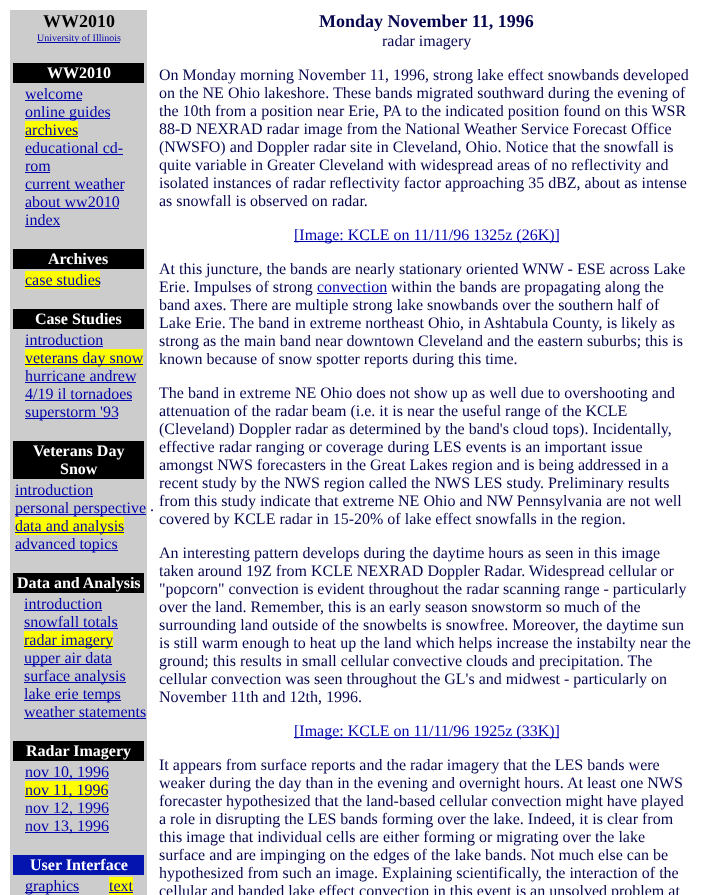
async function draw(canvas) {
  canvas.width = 705;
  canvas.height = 895;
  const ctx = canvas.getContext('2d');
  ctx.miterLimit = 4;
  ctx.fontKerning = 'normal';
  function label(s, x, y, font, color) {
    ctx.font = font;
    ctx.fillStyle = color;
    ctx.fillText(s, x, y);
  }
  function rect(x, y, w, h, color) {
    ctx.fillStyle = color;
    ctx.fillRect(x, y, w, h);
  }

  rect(0, 0, 705, 895, '#fff');
  rect(10, 10, 137, 885, '#ccc');
  label('WW2010', 43, 27, 'bold 18px Liberation Serif', '#000');
  rect(37, 42, 83, 1, '#00a');
  label('University of Illinois', 37, 41, '10px Liberation Serif', '#00a');
  rect(13, 63, 131, 20, '#000');
  label('WW2010', 47, 78, 'bold 16px Liberation Serif', '#fff');
  label('welcome', 25, 99, '16px Liberation Serif', '#00a');
  rect(25, 100, 57, 1, '#00a');
  rect(25, 118, 85, 1, '#00a');
  label('online guides', 25, 117, '16px Liberation Serif', '#00a');
  rect(25, 121, 53, 18, '#ff0');
  label('archives', 25, 135, '16px Liberation Serif', '#00a');
  rect(25, 136, 53, 1, '#00a');
  label('educational cd-', 25, 153, '16px Liberation Serif', '#00a');
  rect(25, 154, 98, 1, '#00a');
  label('rom', 25, 171, '16px Liberation Serif', '#00a');
  rect(25, 172, 25, 1, '#00a');
  label('current weather', 25, 189, '16px Liberation Serif', '#00a');
  rect(25, 190, 99, 1, '#00a');
  label('about ww2010', 25, 207, '16px Liberation Serif', '#00a');
  rect(25, 208, 94, 1, '#00a');
  label('index', 25, 225, '16px Liberation Serif', '#00a');
  rect(25, 226, 35, 1, '#00a');
  rect(13, 249, 131, 20, '#000');
  label('Archives', 48, 264, 'bold 16px Liberation Serif', '#fff');
  rect(25, 271, 75, 18, '#ff0');
  label('case studies', 25, 285, '16px Liberation Serif', '#00a');
  rect(25, 286, 75, 1, '#00a');
  rect(13, 309, 131, 20, '#000');
  label('Case Studies', 35, 324, 'bold 16px Liberation Serif', '#fff');
  label('introduction', 25, 345, '16px Liberation Serif', '#00a');
  rect(25, 346, 78, 1, '#00a');
  rect(25, 349, 118, 18, '#ff0');
  rect(25, 364, 118, 1, '#00a');
  label('veterans day snow', 25, 363, '16px Liberation Serif', '#00a');
  label('hurricane andrew', 25, 381, '16px Liberation Serif', '#00a');
  rect(25, 382, 111, 1, '#00a');
  label('4/19 il tornadoes', 25, 399, '16px Liberation Serif', '#00a');
  rect(25, 400, 107, 1, '#00a');
  rect(25, 418, 93, 1, '#00a');
  label('superstorm \'93', 25, 417, '16px Liberation Serif', '#00a');
  rect(13, 441, 131, 38, '#000');
  label('Veterans Day', 33, 456, 'bold 16px Liberation Serif', '#fff');
  label('Snow', 60, 474, 'bold 16px Liberation Serif', '#fff');
  label('introduction', 15, 495, '16px Liberation Serif', '#00a');
  rect(15, 496, 78, 1, '#00a');
  rect(15, 514, 131, 1, '#00a');
  label('personal perspective', 15, 513, '16px Liberation Serif', '#00a');
  rect(15, 517, 109, 18, '#ff0');
  rect(15, 532, 109, 1, '#00a');
  label('data and analysis', 15, 531, '16px Liberation Serif', '#00a');
  rect(15, 550, 103, 1, '#00a');
  label('advanced topics', 15, 549, '16px Liberation Serif', '#00a');
  rect(13, 573, 131, 20, '#000');
  label('Data and Analysis', 17, 588, 'bold 16px Liberation Serif', '#fff');
  label('introduction', 24, 609, '16px Liberation Serif', '#00a');
  rect(24, 610, 78, 1, '#00a');
  label('snowfall totals', 24, 627, '16px Liberation Serif', '#00a');
  rect(24, 628, 94, 1, '#00a');
  rect(24, 631, 89, 18, '#ff0');
  rect(24, 646, 89, 1, '#00a');
  label('radar imagery', 24, 645, '16px Liberation Serif', '#00a');
  rect(24, 664, 88, 1, '#00a');
  label('upper air data', 24, 663, '16px Liberation Serif', '#00a');
  rect(24, 682, 102, 1, '#00a');
  label('surface analysis', 24, 681, '16px Liberation Serif', '#00a');
  rect(24, 700, 97, 1, '#00a');
  label('lake erie temps', 24, 699, '16px Liberation Serif', '#00a');
  label('weather statements', 24, 717, '16px Liberation Serif', '#00a');
  rect(24, 718, 122, 1, '#00a');
  rect(13, 741, 131, 20, '#000');
  label('Radar Imagery', 26, 756, 'bold 16px Liberation Serif', '#fff');
  rect(25, 778, 84, 1, '#00a');
  label('nov 10, 1996', 25, 777, '16px Liberation Serif', '#00a');
  rect(25, 781, 83, 18, '#ff0');
  rect(25, 796, 83, 1, '#00a');
  label('nov 11, 1996', 25, 795, '16px Liberation Serif', '#00a');
  rect(25, 814, 84, 1, '#00a');
  label('nov 12, 1996', 25, 813, '16px Liberation Serif', '#00a');
  rect(25, 832, 84, 1, '#00a');
  label('nov 13, 1996', 25, 831, '16px Liberation Serif', '#00a');
  rect(13, 855, 131, 20, '#0414af');
  label('User Interface', 30, 870, 'bold 16px Liberation Serif', '#fff');
  rect(25, 892, 54, 1, '#00a');
  label('graphics', 25, 891, '16px Liberation Serif', '#00a');
  rect(109, 877, 24, 18, '#ff0');
  label('text', 109, 891, '16px Liberation Serif', '#00a');
  rect(109, 892, 24, 1, '#00a');
  label('.', 150, 511, '16px Liberation Serif', '#04054d');
  label('Monday November 11, 1996', 319, 27, 'bold 18px Liberation Serif', '#04054d');
  label('radar imagery', 382, 46, '16px Liberation Serif', '#04054d');
  label('On Monday morning November 11, 1996, strong lake effect snowbands developed', 159, 80, '16px Liberation Serif', '#04054d');
  label('on the NE Ohio lakeshore. These bands migrated southward during the evening of', 159, 98, '16px Liberation Serif', '#04054d');
  label('the 10th from a position near Erie, PA to the indicated position found on this WSR', 159, 116, '16px Liberation Serif', '#04054d');
  label('88-D NEXRAD radar image from the National Weather Service Forecast Office', 159, 134, '16px Liberation Serif', '#04054d');
  label('(NWSFO) and Doppler radar site in Cleveland, Ohio. Notice that the snowfall is', 159, 152, '16px Liberation Serif', '#04054d');
  label('quite variable in Greater Cleveland with widespread areas of no reflectivity and', 159, 170, '16px Liberation Serif', '#04054d');
  label('isolated instances of radar reflectivity factor approaching 35 dBZ, about as intense', 159, 188, '16px Liberation Serif', '#04054d');
  label('as snowfall is observed on radar.', 159, 206, '16px Liberation Serif', '#04054d');
  rect(294, 241, 265, 1, '#00a');
  label('[Image: KCLE on 11/11/96 1325z (26K)]', 294, 240, '16px Liberation Serif', '#00a');
  label('At this juncture, the bands are nearly stationary oriented WNW - ESE across Lake', 159, 274, '16px Liberation Serif', '#04054d');
  label('Erie. Impulses of strong', 159, 292, '16px Liberation Serif', '#04054d');
  label('convection', 317, 292, '16px Liberation Serif', '#00a');
  rect(317, 293, 70, 1, '#00a');
  label('within the bands are propagating along the', 391, 292, '16px Liberation Serif', '#04054d');
  label('band axes. There are multiple strong lake snowbands over the southern half of', 159, 310, '16px Liberation Serif', '#04054d');
  label('Lake Erie. The band in extreme northeast Ohio, in Ashtabula County, is likely as', 159, 328, '16px Liberation Serif', '#04054d');
  label('strong as the main band near downtown Cleveland and the eastern suburbs; this is', 159, 346, '16px Liberation Serif', '#04054d');
  label('known because of snow spotter reports during this time.', 159, 364, '16px Liberation Serif', '#04054d');
  label('The band in extreme NE Ohio does not show up as well due to overshooting and', 159, 398, '16px Liberation Serif', '#04054d');
  label('attenuation of the radar beam (i.e. it is near the useful range of the KCLE', 159, 416, '16px Liberation Serif', '#04054d');
  label('(Cleveland) Doppler radar as determined by the band\'s cloud tops). Incidentally,', 159, 434, '16px Liberation Serif', '#04054d');
  label('effective radar ranging or coverage during LES events is an important issue', 159, 452, '16px Liberation Serif', '#04054d');
  label('amongst NWS forecasters in the Great Lakes region and is being addressed in a', 159, 470, '16px Liberation Serif', '#04054d');
  label('recent study by the NWS region called the NWS LES study. Preliminary results', 159, 488, '16px Liberation Serif', '#04054d');
  label('from this study indicate that extreme NE Ohio and NW Pennsylvania are not well', 159, 506, '16px Liberation Serif', '#04054d');
  label('covered by KCLE radar in 15-20% of lake effect snowfalls in the region.', 159, 524, '16px Liberation Serif', '#04054d');
  label('An interesting pattern develops during the daytime hours as seen in this image', 159, 558, '16px Liberation Serif', '#04054d');
  label('taken around 19Z from KCLE NEXRAD Doppler Radar. Widespread cellular or', 159, 576, '16px Liberation Serif', '#04054d');
  label('"popcorn" convection is evident throughout the radar scanning range - particularly', 159, 594, '16px Liberation Serif', '#04054d');
  label('over the land. Remember, this is an early season snowstorm so much of the', 159, 612, '16px Liberation Serif', '#04054d');
  label('surrounding land outside of the snowbelts is snowfree. Moreover, the daytime sun', 159, 630, '16px Liberation Serif', '#04054d');
  label('is still warm enough to heat up the land which helps increase the instabilty near the', 159, 648, '16px Liberation Serif', '#04054d');
  label('ground; this results in small cellular convective clouds and precipitation. The', 159, 666, '16px Liberation Serif', '#04054d');
  label('cellular convection was seen throughout the GL\'s and midwest - particularly on', 159, 684, '16px Liberation Serif', '#04054d');
  label('November 11th and 12th, 1996.', 159, 702, '16px Liberation Serif', '#04054d');
  rect(294, 737, 265, 1, '#00a');
  label('[Image: KCLE on 11/11/96 1925z (33K)]', 294, 736, '16px Liberation Serif', '#00a');
  label('It appears from surface reports and the radar imagery that the LES bands were', 159, 770, '16px Liberation Serif', '#04054d');
  label('weaker during the day than in the evening and overnight hours. At least one NWS', 159, 788, '16px Liberation Serif', '#04054d');
  label('forecaster hypothesized that the land-based cellular convection might have played', 159, 806, '16px Liberation Serif', '#04054d');
  label('a role in disrupting the LES bands forming over the lake. Indeed, it is clear from', 159, 824, '16px Liberation Serif', '#04054d');
  label('this image that individual cells are either forming or migrating over the lake', 159, 842, '16px Liberation Serif', '#04054d');
  label('surface and are impinging on the edges of the lake bands. Not much else can be', 159, 860, '16px Liberation Serif', '#04054d');
  label('hypothesized from such an image. Explaining scientifically, the interaction of the', 159, 878, '16px Liberation Serif', '#04054d');
  label('cellular and banded lake effect convection in this event is an unsolved problem at', 159, 896, '16px Liberation Serif', '#04054d');
}

draw(document.querySelector('canvas'));
